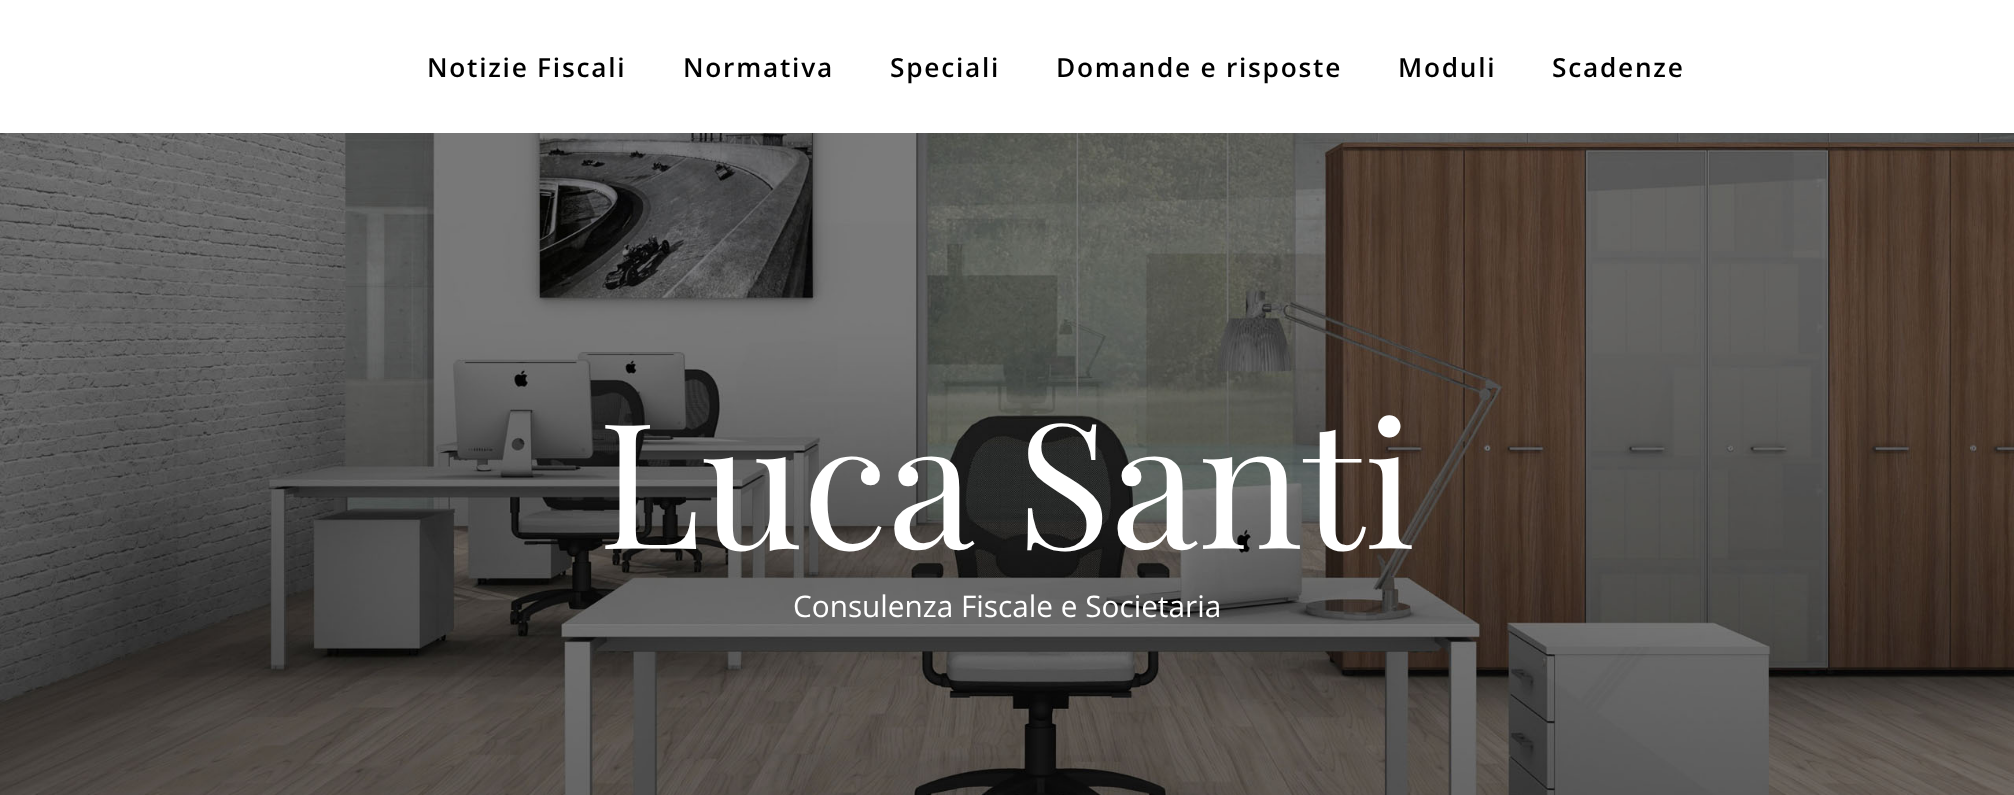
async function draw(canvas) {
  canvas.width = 2014;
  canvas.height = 795;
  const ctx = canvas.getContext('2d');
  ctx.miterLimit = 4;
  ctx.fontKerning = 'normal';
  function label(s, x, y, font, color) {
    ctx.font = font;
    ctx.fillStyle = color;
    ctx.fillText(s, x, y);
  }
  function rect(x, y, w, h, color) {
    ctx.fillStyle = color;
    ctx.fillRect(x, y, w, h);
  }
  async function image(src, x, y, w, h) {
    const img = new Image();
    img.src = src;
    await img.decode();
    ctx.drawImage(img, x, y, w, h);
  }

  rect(0, 0, 2014, 795, '#fff');
  ctx.letterSpacing = '1.75px';
  label('Notizie Fiscali', 427, 77, '600 26.25px Open Sans', '#000');
  label('Normativa', 683, 77, '600 26.25px Open Sans', '#000');
  label('Speciali', 890, 77, '600 26.25px Open Sans', '#000');
  label('Domande e risposte', 1056, 77, '600 26.25px Open Sans', '#000');
  label('Moduli', 1398, 77, '600 26.25px Open Sans', '#000');
  label('Scadenze', 1552, 77, '600 26.25px Open Sans', '#000');
  await image('assets/img1.png', 0, 133, 2014, 662);
  ctx.letterSpacing = '0px';
  label('Luca Santi', 598, 549, '175px Playfair Display', '#fff');
  label('Consulenza Fiscale e Societaria', 793, 617, '29.75px Open Sans', '#fff');
}

draw(document.querySelector('canvas'));
